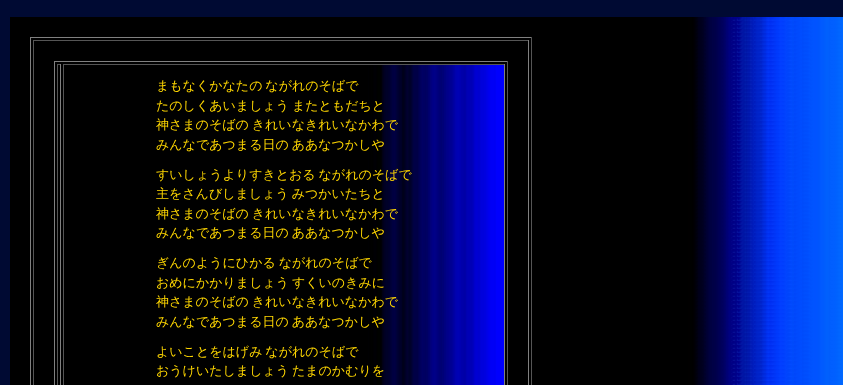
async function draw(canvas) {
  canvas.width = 843;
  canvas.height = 385;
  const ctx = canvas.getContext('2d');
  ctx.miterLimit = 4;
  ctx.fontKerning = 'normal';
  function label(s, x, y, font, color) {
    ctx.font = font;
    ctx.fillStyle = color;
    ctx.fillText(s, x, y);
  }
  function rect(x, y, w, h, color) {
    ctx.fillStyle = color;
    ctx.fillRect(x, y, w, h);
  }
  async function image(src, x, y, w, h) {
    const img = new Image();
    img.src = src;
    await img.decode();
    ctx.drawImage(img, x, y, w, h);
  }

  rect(0, 0, 843, 385, '#000a33');
  await image('assets/img1.png', 10, 17, 833, 368);
  rect(30, 37, 502, 1, '#808080');
  rect(531, 37, 1, 348, '#555');
  rect(30, 37, 1, 348, '#808080');
  rect(33, 40, 496, 1, '#555');
  rect(528, 40, 1, 345, '#808080');
  rect(33, 40, 1, 345, '#555');
  rect(54, 61, 454, 1, '#808080');
  rect(507, 61, 1, 324, '#555');
  rect(54, 61, 1, 324, '#808080');
  rect(57, 64, 4, 1, '#555');
  rect(60, 64, 1, 321, '#808080');
  rect(57, 64, 1, 321, '#555');
  await image('assets/img2.png', 64, 65, 440, 320);
  rect(63, 64, 442, 1, '#555');
  rect(504, 64, 1, 321, '#808080');
  rect(63, 64, 1, 321, '#555');
  ctx.wordSpacing = '-1px';
  label('まもなくかなたの ながれのそばで', 156, 90, '500 13px WenQuanYi Zen Hei', '#ffd700');
  label('たのしくあいましょう またともだちと', 156, 110, '500 13px WenQuanYi Zen Hei', '#ffd700');
  label('神さまのそばの きれいなきれいなかわで', 156, 129, '500 13px WenQuanYi Zen Hei', '#ffd700');
  label('みんなであつまる日の ああなつかしや', 156, 149, '500 13px WenQuanYi Zen Hei', '#ffd700');
  label('すいしょうよりすきとおる ながれのそばで', 156, 179, '500 13px WenQuanYi Zen Hei', '#ffd700');
  label('主をさんびしましょう みつかいたちと', 156, 198, '500 13px WenQuanYi Zen Hei', '#ffd700');
  label('神さまのそばの きれいなきれいなかわで', 156, 218, '500 13px WenQuanYi Zen Hei', '#ffd700');
  label('みんなであつまる日の ああなつかしや', 156, 237, '500 13px WenQuanYi Zen Hei', '#ffd700');
  label('ぎんのようにひかる ながれのそばで', 156, 267, '500 13px WenQuanYi Zen Hei', '#ffd700');
  label('おめにかかりましょう すくいのきみに', 156, 287, '500 13px WenQuanYi Zen Hei', '#ffd700');
  label('神さまのそばの きれいなきれいなかわで', 156, 306, '500 13px WenQuanYi Zen Hei', '#ffd700');
  label('みんなであつまる日の ああなつかしや', 156, 326, '500 13px WenQuanYi Zen Hei', '#ffd700');
  label('よいことをはげみ ながれのそばで', 156, 356, '500 13px WenQuanYi Zen Hei', '#ffd700');
  label('おうけいたしましょう たまのかむりを', 156, 375, '500 13px WenQuanYi Zen Hei', '#ffd700');
}

draw(document.querySelector('canvas'));
